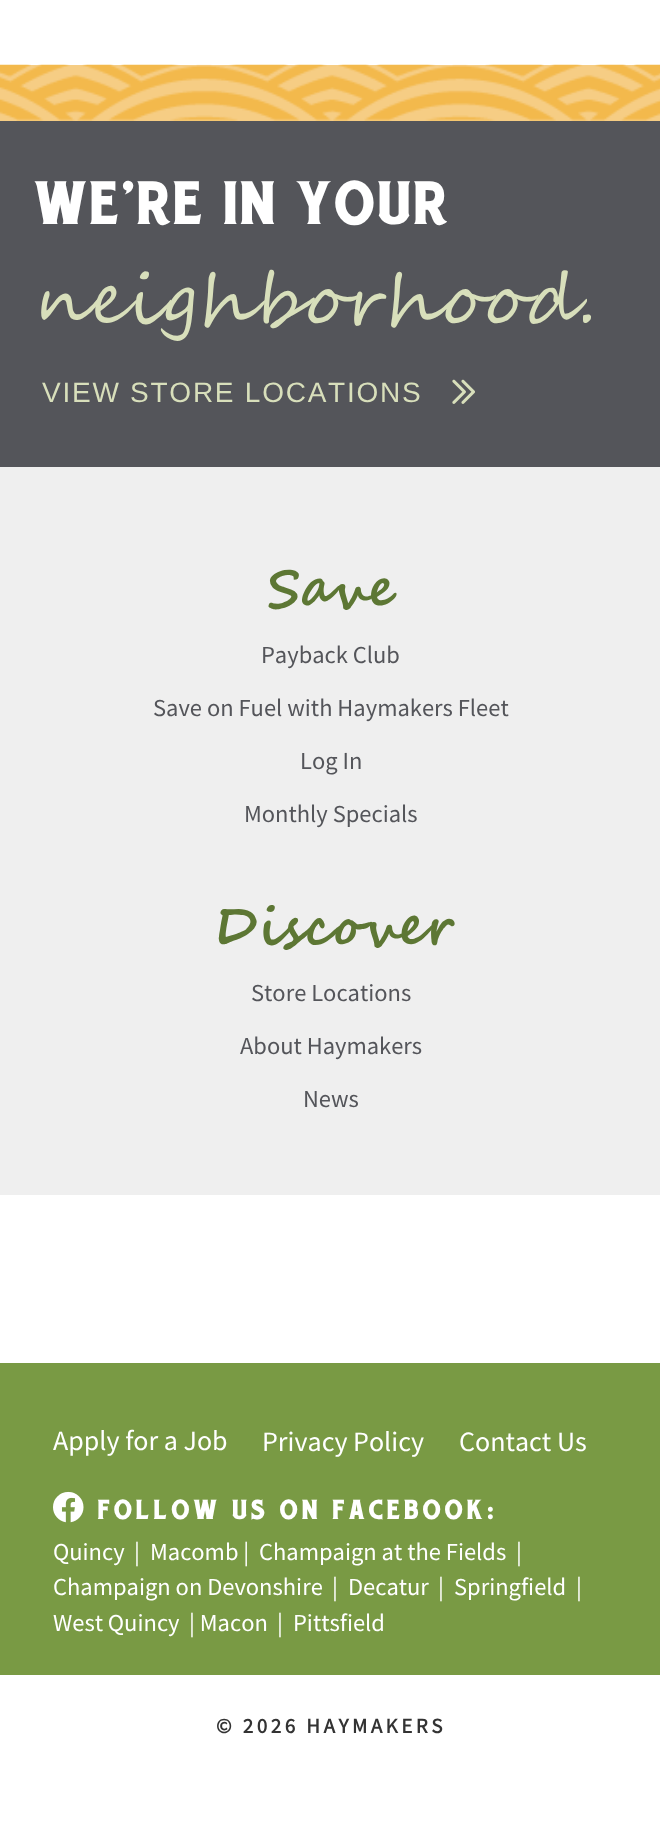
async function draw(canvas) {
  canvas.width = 660;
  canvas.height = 1824;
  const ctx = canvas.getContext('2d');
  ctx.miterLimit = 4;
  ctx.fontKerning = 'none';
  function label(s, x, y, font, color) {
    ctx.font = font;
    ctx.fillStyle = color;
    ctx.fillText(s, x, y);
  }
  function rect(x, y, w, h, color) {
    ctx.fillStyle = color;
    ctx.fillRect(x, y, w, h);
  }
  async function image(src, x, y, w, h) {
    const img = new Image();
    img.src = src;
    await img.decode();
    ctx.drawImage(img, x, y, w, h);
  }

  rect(0, 0, 660, 1824, '#fff');
  rect(0, 65, 660, 56, '#f6cd84');
  await image('assets/img1.png', 0, 64, 660, 57);
  rect(0, 121, 660, 346, '#54555a');
  ctx.letterSpacing = '1.75px';
  label('WE\'RE IN YOUR', 35, 224, '70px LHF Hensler', '#fff');
  label('neighborhood.', 35, 324, '70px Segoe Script', '#d8dfbb');
  label('VIEW STORE LOCATIONS', 42, 402, '28px Liberation Sans', '#d8dfbb');
  await image('assets/img2.png', 452, 379, 23, 25);
  rect(0, 467, 660, 728, '#efefef');
  ctx.letterSpacing = '0px';
  label('Save', 268, 607, 'bold 52.5px Segoe Script', '#5d7734');
  label('Payback Club', 261, 663, '24.5px Source Sans Pro', '#54555a');
  label('Save on Fuel with Haymakers Fleet', 153, 716, '24.5px Source Sans Pro', '#54555a');
  label('Log In', 300, 769, '24.5px Source Sans Pro', '#54555a');
  label('Monthly Specials', 244, 822, '24.5px Source Sans Pro', '#54555a');
  label('Discover', 213, 945, 'bold 52.5px Segoe Script', '#5d7734');
  label('Store Locations', 251, 1001, '24.5px Source Sans Pro', '#54555a');
  label('About Haymakers', 240, 1054, '24.5px Source Sans Pro', '#54555a');
  label('News', 303, 1107, '24.5px Source Sans Pro', '#54555a');
  rect(0, 1363, 660, 312, '#799a44');
  label('Apply for a Job', 53, 1450, '28px Source Sans Pro', '#fff');
  label('Privacy Policy', 262, 1451, '28px Source Sans Pro', '#fff');
  label('Contact Us', 459, 1451, '28px Source Sans Pro', '#fff');
  await image('assets/img3.png', 53, 1491, 31, 32);
  ctx.letterSpacing = '3.5px';
  label('FOLLOW US ON FACEBOOK:', 98, 1519, '31.5px LHF Hensler', '#fff');
  ctx.letterSpacing = '0px';
  label('Quincy', 53, 1560, '24.5px Source Sans Pro', '#fff');
  label('|', 134, 1560, '24.5px Source Sans Pro', '#fff');
  label('Macomb |', 150, 1560, '24.5px Source Sans Pro', '#fff');
  label('Champaign at the Fields', 259, 1560, '24.5px Source Sans Pro', '#fff');
  label('|', 516, 1560, '24.5px Source Sans Pro', '#fff');
  label('Champaign on Devonshire', 53, 1595, '24.5px Source Sans Pro', '#fff');
  label('|', 332, 1595, '24.5px Source Sans Pro', '#fff');
  label('Decatur', 348, 1595, '24.5px Source Sans Pro', '#fff');
  label('|', 438, 1595, '24.5px Source Sans Pro', '#fff');
  label('Springfield', 454, 1595, '24.5px Source Sans Pro', '#fff');
  label('|', 576, 1595, '24.5px Source Sans Pro', '#fff');
  label('West Quincy', 53, 1631, '24.5px Source Sans Pro', '#fff');
  label('| Macon', 189, 1631, '24.5px Source Sans Pro', '#fff');
  label('|', 277, 1631, '24.5px Source Sans Pro', '#fff');
  label('Pittsfield', 293, 1631, '24.5px Source Sans Pro', '#fff');
  ctx.letterSpacing = '3.5px';
  label('© 2026 HAYMAKERS', 216, 1733, 'bold 21px Source Sans Pro', '#333');
}

draw(document.querySelector('canvas'));
